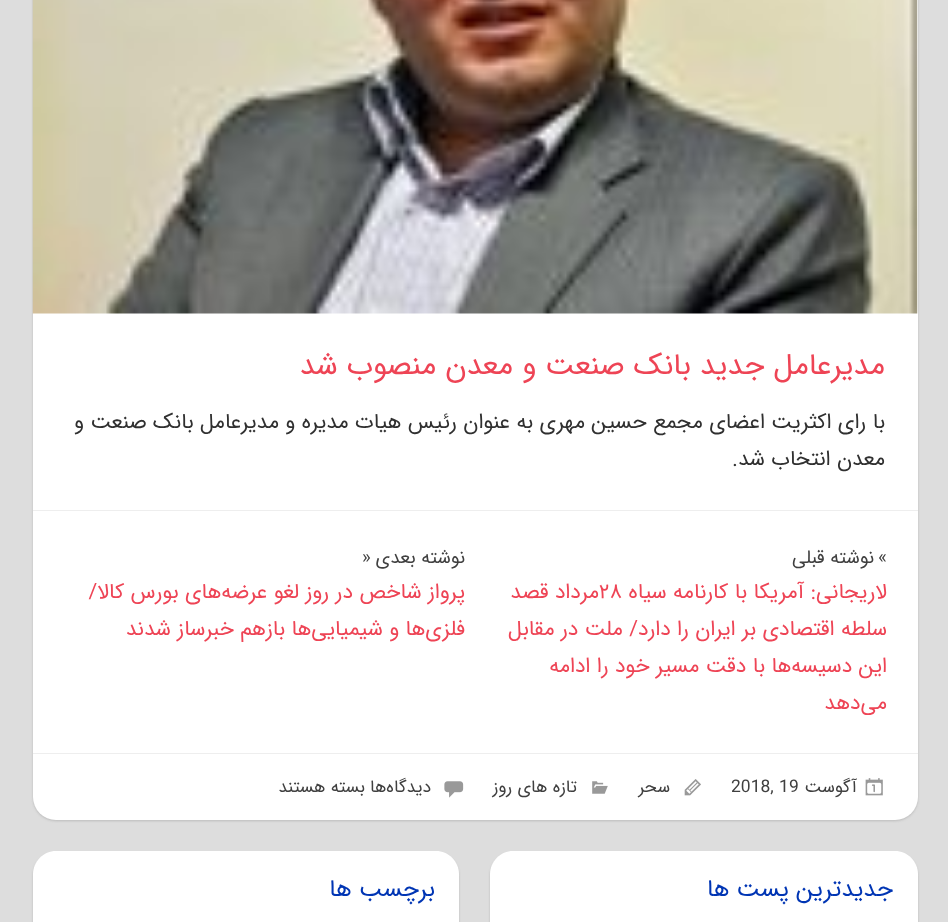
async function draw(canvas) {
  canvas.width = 948;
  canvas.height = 922;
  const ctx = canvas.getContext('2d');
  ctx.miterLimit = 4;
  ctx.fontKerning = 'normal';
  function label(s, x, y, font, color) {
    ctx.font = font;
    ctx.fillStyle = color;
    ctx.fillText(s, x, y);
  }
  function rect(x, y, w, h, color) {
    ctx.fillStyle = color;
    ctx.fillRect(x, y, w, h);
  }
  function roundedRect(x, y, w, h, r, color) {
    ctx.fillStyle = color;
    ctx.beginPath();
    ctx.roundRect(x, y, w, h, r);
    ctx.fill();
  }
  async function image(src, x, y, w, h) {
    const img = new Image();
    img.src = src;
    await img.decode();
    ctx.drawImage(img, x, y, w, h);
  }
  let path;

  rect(0, 0, 948, 922, '#ddd');
  ctx.fillStyle = '#bbb';
  ctx.filter = 'blur(1px)';
  ctx.beginPath();
  ctx.roundRect(33, -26, 885, 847, 23);
  ctx.fill();
  ctx.filter = 'none';
  roundedRect(33, -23, 885, 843, 23, '#fff');
  await image('assets/img1.png', 32, 0, 886, 314);
  ctx.direction = 'rtl';
  label('مدیرعامل جدید بانک صنعت و معدن منصوب شد', 885, 374, '30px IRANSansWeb', '#e45');
  label('با رای اکثریت اعضای مجمع حسین مهری به عنوان رئیس هیات مدیره و مدیرعامل بانک صنعت و', 885, 428, '21.25px IRANSansWeb', '#303030');
  label('معدن انتخاب شد.', 885, 465, '21.25px IRANSansWeb', '#303030');
  rect(33, 510, 885, 1, '#eee');
  ctx.direction = 'ltr';
  label('«', 878, 563, '18.75px IRANSansWeb', '#404040');
  ctx.direction = 'rtl';
  label('نوشته‌ قبلی', 874, 563, '18.75px IRANSansWeb', '#404040');
  label('لاریجانی: آمریکا با کارنامه سیاه', 887, 598, '21.25px IRANSansWeb', '#e45');
  ctx.direction = 'ltr';
  label('۲۸', 599, 598, '21.25px IRANSansWeb', '#e45');
  ctx.direction = 'rtl';
  label('مرداد قصد', 599, 598, '21.25px IRANSansWeb', '#e45');
  label('سلطه اقتصادی بر ایران را دارد/ ملت در مقابل', 887, 635, '21.25px IRANSansWeb', '#e45');
  label('این دسیسه‌ها با دقت مسیر خود را ادامه', 887, 672, '21.25px IRANSansWeb', '#e45');
  label('می‌دهد', 887, 709, '21.25px IRANSansWeb', '#e45');
  label('نوشته بعدی', 465, 563, '18.75px IRANSansWeb', '#404040');
  ctx.direction = 'ltr';
  label('»', 362, 563, '18.75px IRANSansWeb', '#404040');
  ctx.direction = 'rtl';
  label('پرواز شاخص در روز لغو عرضه‌های بورس کالا/', 465, 598, '21.25px IRANSansWeb', '#e45');
  label('فلزی‌ها و شیمیایی‌ها بازهم خبرساز شدند', 465, 635, '21.25px IRANSansWeb', '#e45');
  rect(33, 753, 885, 1, '#eee');
  await image('assets/img2.png', 865, 778, 18, 18);
  label('آگوست', 857, 792, '17.5px IRANSansWeb', '#404040');
  ctx.direction = 'ltr';
  label('2018, 19', 731, 792, '17.5px IRANSansWeb', '#404040');
  await image('assets/img3.png', 684, 779, 17, 17);
  ctx.direction = 'rtl';
  label('سحر', 670, 792, '17.5px IRANSansWeb', '#404040');
  await image('assets/img4.png', 592, 781, 16, 13);
  label('تازه های روز', 577, 792, '17.5px IRANSansWeb', '#404040');
  await image('assets/img5.png', 444, 781, 20, 17);
  label('دیدگاه‌ها', 431, 792, '17.5px IRANSansWeb', '#404040');
  label('بسته هستند', 365, 792, '17.5px IRANSansWeb', '#404040');
  ctx.fillStyle = '#bbb';
  ctx.filter = 'blur(1px)';
  ctx.beginPath();
  ctx.roundRect(490, 853, 428, 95, 23);
  ctx.fill();
  ctx.filter = 'none';
  ctx.fillStyle = '#fff';
  path = new Path2D('M513 851H895C907.5 851 918 861.5 918 874V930H490V874C490 861.5 500.5 851 513 851Z');
  ctx.fill(path);
  label('جدیدترین پست ها', 893, 896, '24px IRANSansWeb', '#0035b4');
  ctx.fillStyle = '#bbb';
  ctx.filter = 'blur(1px)';
  ctx.beginPath();
  ctx.roundRect(33, 853, 426, 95, 23);
  ctx.fill();
  ctx.filter = 'none';
  ctx.fillStyle = '#fff';
  path = new Path2D('M56 851H436C448.5 851 459 861.5 459 874V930H33V874C33 861.5 43.5 851 56 851Z');
  ctx.fill(path);
  label('برچسب ها', 435, 896, '24px IRANSansWeb', '#0035b4');
}

draw(document.querySelector('canvas'));
